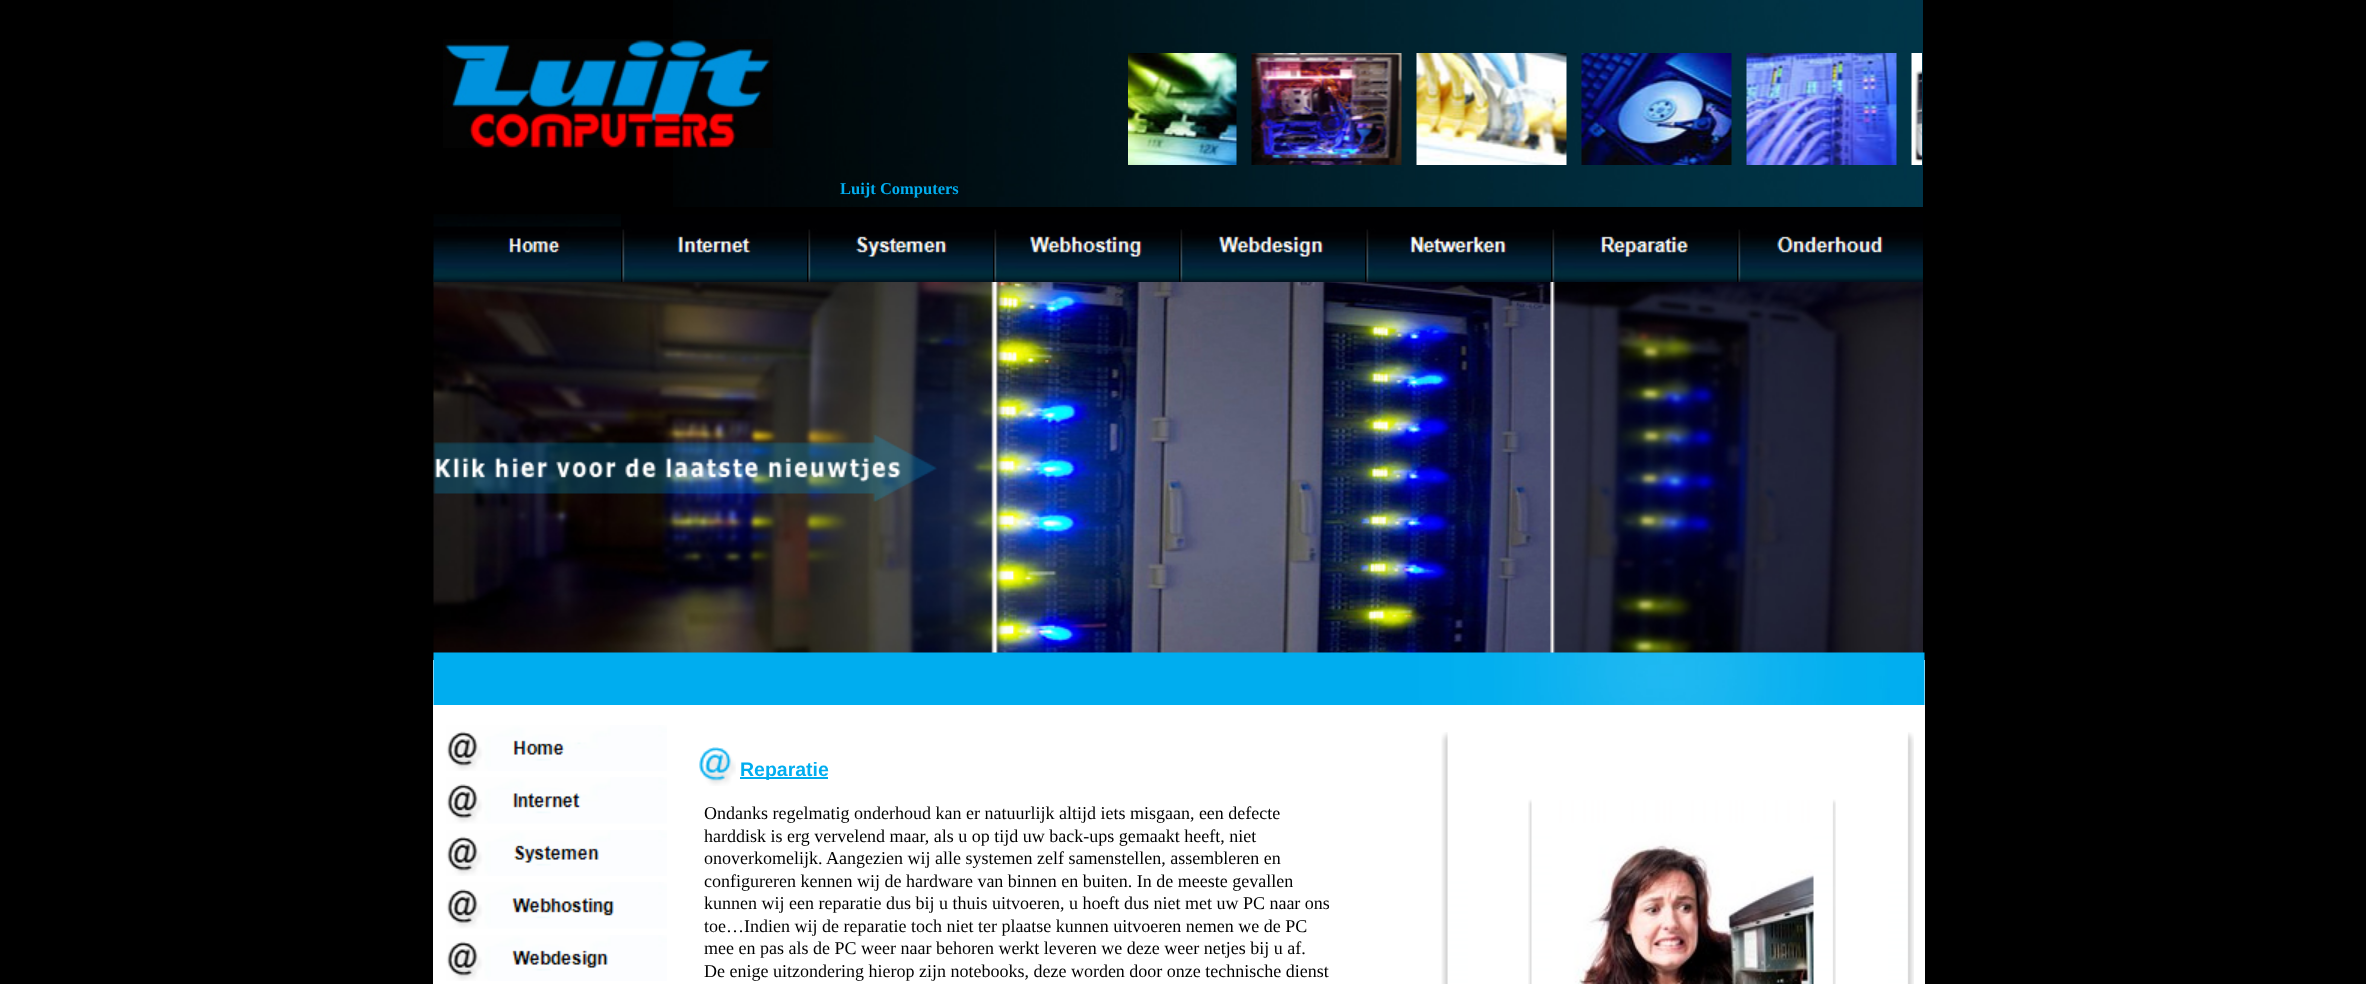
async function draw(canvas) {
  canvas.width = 2366;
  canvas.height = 984;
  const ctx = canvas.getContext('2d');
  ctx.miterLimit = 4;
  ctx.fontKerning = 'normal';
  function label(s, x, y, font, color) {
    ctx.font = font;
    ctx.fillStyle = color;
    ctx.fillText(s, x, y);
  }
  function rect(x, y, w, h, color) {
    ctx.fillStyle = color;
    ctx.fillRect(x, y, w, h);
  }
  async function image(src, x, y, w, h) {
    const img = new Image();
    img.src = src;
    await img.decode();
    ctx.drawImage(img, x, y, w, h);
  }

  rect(0, 0, 2366, 984, '#000');
  await image('assets/img2.png', 673, 0, 1250, 207);
  await image('assets/img1.png', 443, 39, 330, 109);
  await image('assets/img3.png', 1128, 53, 109, 112);
  await image('assets/img4.png', 1251, 53, 151, 112);
  await image('assets/img5.png', 1416, 53, 151, 112);
  await image('assets/img6.png', 1581, 53, 151, 112);
  await image('assets/img7.png', 1746, 53, 151, 112);
  await image('assets/img8.png', 1911, 53, 11, 112);
  label('Luijt Computers', 840, 194, 'bold 16.5px Liberation Serif', '#00adef');
  await image('assets/img17.png', 433, 274, 1490, 386);
  await image('assets/img9.png', 433, 214, 188, 68);
  await image('assets/img10.png', 621, 207, 186, 75);
  await image('assets/img11.png', 807, 207, 186, 75);
  await image('assets/img12.png', 993, 207, 186, 75);
  await image('assets/img13.png', 1179, 207, 186, 75);
  await image('assets/img14.png', 1365, 207, 186, 75);
  await image('assets/img15.png', 1551, 207, 186, 75);
  await image('assets/img16.png', 1737, 207, 186, 75);
  await image('assets/img18.png', 433, 434, 504, 68);
  await image('assets/img19.png', 434, 457, 467, 25);
  rect(433, 660, 1492, 324, '#fff');
  await image('assets/img20.png', 433, 652, 1492, 53);
  await image('assets/img21.png', 446, 725, 221, 46);
  await image('assets/img22.png', 446, 777, 221, 47);
  await image('assets/img23.png', 446, 830, 221, 46);
  await image('assets/img24.png', 446, 882, 221, 47);
  await image('assets/img25.png', 446, 935, 221, 46);
  await image('assets/img26.png', 1441, 732, 473, 252);
  await image('assets/img27.png', 699, 747, 37, 39);
  rect(740, 777, 88, 2, '#00adef');
  label('Reparatie', 740, 776, 'bold 19.5px Liberation Sans', '#00adef');
  label('Ondanks regelmatig onderhoud kan er natuurlijk altijd iets misgaan, een defecte', 704, 819, '18px Liberation Serif', '#000');
  label('harddisk is erg vervelend maar, als u op tijd uw back-ups gemaakt heeft, niet', 704, 842, '18px Liberation Serif', '#000');
  label('onoverkomelijk. Aangezien wij alle systemen zelf samenstellen, assembleren en', 704, 864, '18px Liberation Serif', '#000');
  label('configureren kennen wij de hardware van binnen en buiten. In de meeste gevallen', 704, 887, '18px Liberation Serif', '#000');
  label('kunnen wij een reparatie dus bij u thuis uitvoeren, u hoeft dus niet met uw PC naar ons', 704, 909, '18px Liberation Serif', '#000');
  label('toe…Indien wij de reparatie toch niet ter plaatse kunnen uitvoeren nemen we de PC', 704, 932, '18px Liberation Serif', '#000');
  label('mee en pas als de PC weer naar behoren werkt leveren we deze weer netjes bij u af.', 704, 954, '18px Liberation Serif', '#000');
  label('De enige uitzondering hierop zijn notebooks, deze worden door onze technische dienst', 704, 977, '18px Liberation Serif', '#000');
  await image('assets/img28.png', 1528, 799, 308, 185);
}

draw(document.querySelector('canvas'));
